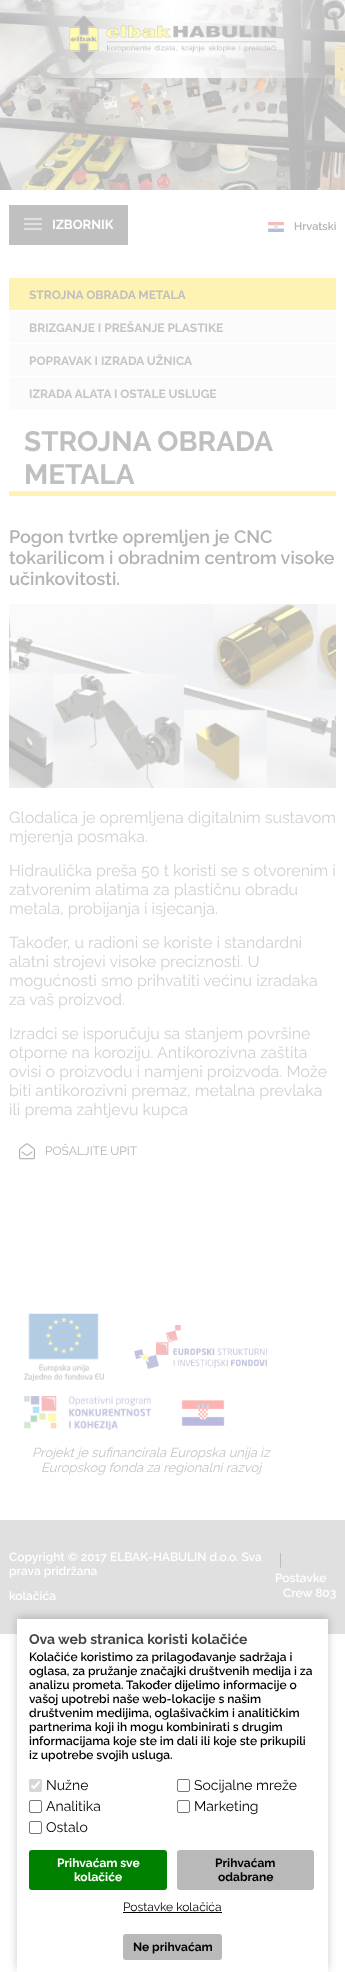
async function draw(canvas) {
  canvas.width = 345;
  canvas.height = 1972;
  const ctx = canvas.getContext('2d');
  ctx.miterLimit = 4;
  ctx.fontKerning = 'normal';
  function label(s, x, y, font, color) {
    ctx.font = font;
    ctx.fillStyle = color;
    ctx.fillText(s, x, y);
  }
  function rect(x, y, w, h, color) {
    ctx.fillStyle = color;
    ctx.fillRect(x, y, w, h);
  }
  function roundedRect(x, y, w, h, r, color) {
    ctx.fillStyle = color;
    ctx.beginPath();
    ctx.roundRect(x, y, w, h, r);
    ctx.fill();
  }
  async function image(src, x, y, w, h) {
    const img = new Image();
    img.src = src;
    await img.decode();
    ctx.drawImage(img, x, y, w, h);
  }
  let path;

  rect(0, 0, 345, 1972, '#fff');
  rect(9, 205, 119, 40, '#c0c0c0');
  rect(24, 218, 18, 2, '#e0e0e0');
  rect(24, 223, 18, 2, '#e0e0e0');
  rect(24, 228, 18, 2, '#e0e0e0');
  label('IZBORNIK', 52, 229, 'bold 13px Raleway', '#fff');
  await image('assets/img1.png', 0, 0, 345, 190);
  await image('assets/img2.png', 69, 15, 207, 48);
  await image('assets/img3.png', 268, 222, 16, 10);
  label('Hrvatski', 294, 230, '600 11px Raleway', '#b3b3b3');
  rect(9, 278, 327, 32, '#fff3b3');
  label('STROJNA OBRADA METALA', 29, 299, 'bold 12px Raleway', '#c0c0c0');
  rect(9, 311, 327, 32, '#fbfbfb');
  label('BRIZGANJE I PREŠANJE PLASTIKE', 29, 332, 'bold 12px Raleway', '#c6c6c6');
  rect(9, 344, 327, 32, '#fbfbfb');
  label('POPRAVAK I IZRADA UŽNICA', 29, 365, 'bold 12px Raleway', '#c6c6c6');
  rect(9, 377, 327, 32, '#fbfbfb');
  label('IZRADA ALATA I OSTALE USLUGE', 29, 398, 'bold 12px Raleway', '#c6c6c6');
  rect(9, 491, 327, 5, '#fff3b3');
  label('STROJNA OBRADA', 24, 451, 'bold 28px Raleway', '#c0c0c0');
  label('METALA', 24, 484, 'bold 28px Raleway', '#c0c0c0');
  label('Pogon tvrtke opremljen je CNC', 9, 543, '600 18px Raleway', '#b3b3b3');
  label('tokarilicom i obradnim centrom visoke', 9, 564, '600 18px Raleway', '#b3b3b3');
  label('učinkovitosti.', 9, 585, '600 18px Raleway', '#b3b3b3');
  await image('assets/img4.png', 9, 604, 327, 184);
  label('Glodalica je opremljena digitalnim sustavom', 9, 823, '16px Raleway', '#d2d2d2');
  label('mjerenja posmaka.', 9, 842, '16px Raleway', '#d2d2d2');
  label('Hidraulička preša 50 t koristi se s otvorenim i', 9, 876, '16px Raleway', '#d2d2d2');
  label('zatvorenim alatima za plastičnu obradu', 9, 895, '16px Raleway', '#d2d2d2');
  label('metala, probijanja i isjecanja.', 9, 914, '16px Raleway', '#d2d2d2');
  label('Također, u radioni se koriste i standardni', 9, 948, '16px Raleway', '#d2d2d2');
  label('alatni strojevi visoke preciznosti. U', 9, 967, '16px Raleway', '#d2d2d2');
  label('mogućnosti smo prihvatiti većinu izradaka', 9, 986, '16px Raleway', '#d2d2d2');
  label('za vaš proizvod.', 9, 1005, '16px Raleway', '#d2d2d2');
  label('Izradci se isporučuju sa stanjem površine', 9, 1039, '16px Raleway', '#d2d2d2');
  label('otporne na koroziju. Antikorozivna zaštita', 9, 1058, '16px Raleway', '#d2d2d2');
  label('ovisi o proizvodu i namjeni proizvoda. Može', 9, 1077, '16px Raleway', '#d2d2d2');
  label('biti antikorozivni premaz, metalna prevlaka', 9, 1096, '16px Raleway', '#d2d2d2');
  label('ili prema zahtjevu kupca', 9, 1115, '16px Raleway', '#d2d2d2');
  await image('assets/img5.png', 19, 1143, 16, 17);
  label('POŠALJITE UPIT', 45, 1155, '12px Raleway', '#b3b3b3');
  await image('assets/img6.png', 24, 1313, 80, 68);
  await image('assets/img7.png', 134, 1325, 133, 44);
  await image('assets/img8.png', 24, 1396, 127, 34);
  await image('assets/img9.png', 181, 1400, 44, 26);
  label('Projekt je sufinancirala Europska unija iz', 32, 1457, 'italic 13px Raleway', '#c6c6c6');
  label('Europskog fonda za regionalni razvoj', 41, 1472, 'italic 13px Raleway', '#c6c6c6');
  rect(0, 1520, 345, 114, '#e0e0e0');
  label('Copyright © 2017 ELBAK-HABULIN d.o.o. Sva', 9, 1561, '600 12px Raleway', '#fff');
  label('prava pridržana', 9, 1575, '600 12px Raleway', '#fff');
  label('|', 279, 1564, '16px Liberation Serif', '#b3b3b3');
  label('Postavke', 275, 1582, '600 12px Raleway', '#fff');
  label('kolačića', 9, 1600, '600 12px Raleway', '#fff');
  label('Crew 803', 283, 1597, '600 12px Raleway', '#fff');
  ctx.fillStyle = '#00000033';
  ctx.filter = 'blur(4px)';
  ctx.beginPath();
  ctx.rect(17, 1617, 311, 353);
  ctx.fill();
  ctx.filter = 'none';
  rect(17, 1619, 311, 353, '#fff');
  label('Ova web stranica koristi kolačiće', 29, 1644, 'bold 14px Raleway', '#464646');
  label('Kolačiće koristimo za prilagođavanje sadržaja i', 29, 1661, '600 12px Raleway', '#000');
  label('oglasa, za pružanje značajki društvenih medija i za', 29, 1675, '600 12px Raleway', '#000');
  label('analizu prometa. Također dijelimo informacije o', 29, 1689, '600 12px Raleway', '#000');
  label('vašoj upotrebi naše web-lokacije s našim', 29, 1703, '600 12px Raleway', '#000');
  label('društvenim medijima, oglašivačkim i analitičkim', 29, 1717, '600 12px Raleway', '#000');
  label('partnerima koji ih mogu kombinirati s drugim', 29, 1731, '600 12px Raleway', '#000');
  label('informacijama koje ste im dali ili koje ste prikupili', 29, 1745, '600 12px Raleway', '#000');
  label('iz upotrebe svojih usluga.', 29, 1759, '600 12px Raleway', '#000');
  roundedRect(29, 1779, 13, 13, 2, '#d6d6d6');
  path = new Path2D('M31.5 1785.5L34 1788L39.5 1781.5');
  ctx.strokeStyle = '#fff';
  ctx.lineWidth = 2.1;
  ctx.stroke(path);
  label('Nužne', 46, 1790, '14px Raleway', '#000');
  ctx.beginPath();
  ctx.roundRect(177.5, 1779.5, 12, 12, 1.5);
  ctx.strokeStyle = '#767676';
  ctx.lineWidth = 1;
  ctx.stroke();
  label('Socijalne mreže', 194, 1790, '14px Raleway', '#000');
  ctx.beginPath();
  ctx.roundRect(29.5, 1800.5, 12, 12, 1.5);
  ctx.stroke();
  label('Analitika', 46, 1811, '14px Raleway', '#000');
  ctx.beginPath();
  ctx.roundRect(177.5, 1800.5, 12, 12, 1.5);
  ctx.stroke();
  label('Marketing', 194, 1811, '14px Raleway', '#000');
  ctx.beginPath();
  ctx.roundRect(29.5, 1821.5, 12, 12, 1.5);
  ctx.stroke();
  label('Ostalo', 46, 1832, '14px Raleway', '#000');
  roundedRect(29, 1850, 138, 40, 3, '#008000');
  label('Prihvaćam sve', 57, 1867, 'bold 12px Raleway', '#fff');
  label('kolačiće', 74, 1881, 'bold 12px Raleway', '#fff');
  roundedRect(177, 1850, 137, 40, 3, '#b9b9b9');
  label('Prihvaćam', 215, 1867, 'bold 12px Raleway', '#000');
  label('odabrane', 218, 1881, 'bold 12px Raleway', '#000');
  label('Postavke kolačića', 123, 1911, '12px Raleway', '#000');
  rect(123, 1912, 99, 1, '#000');
  roundedRect(123, 1934, 99, 26, 3, '#b9b9b9');
  label('Ne prihvaćam', 133, 1951, 'bold 12px Raleway', '#000');
}

draw(document.querySelector('canvas'));
